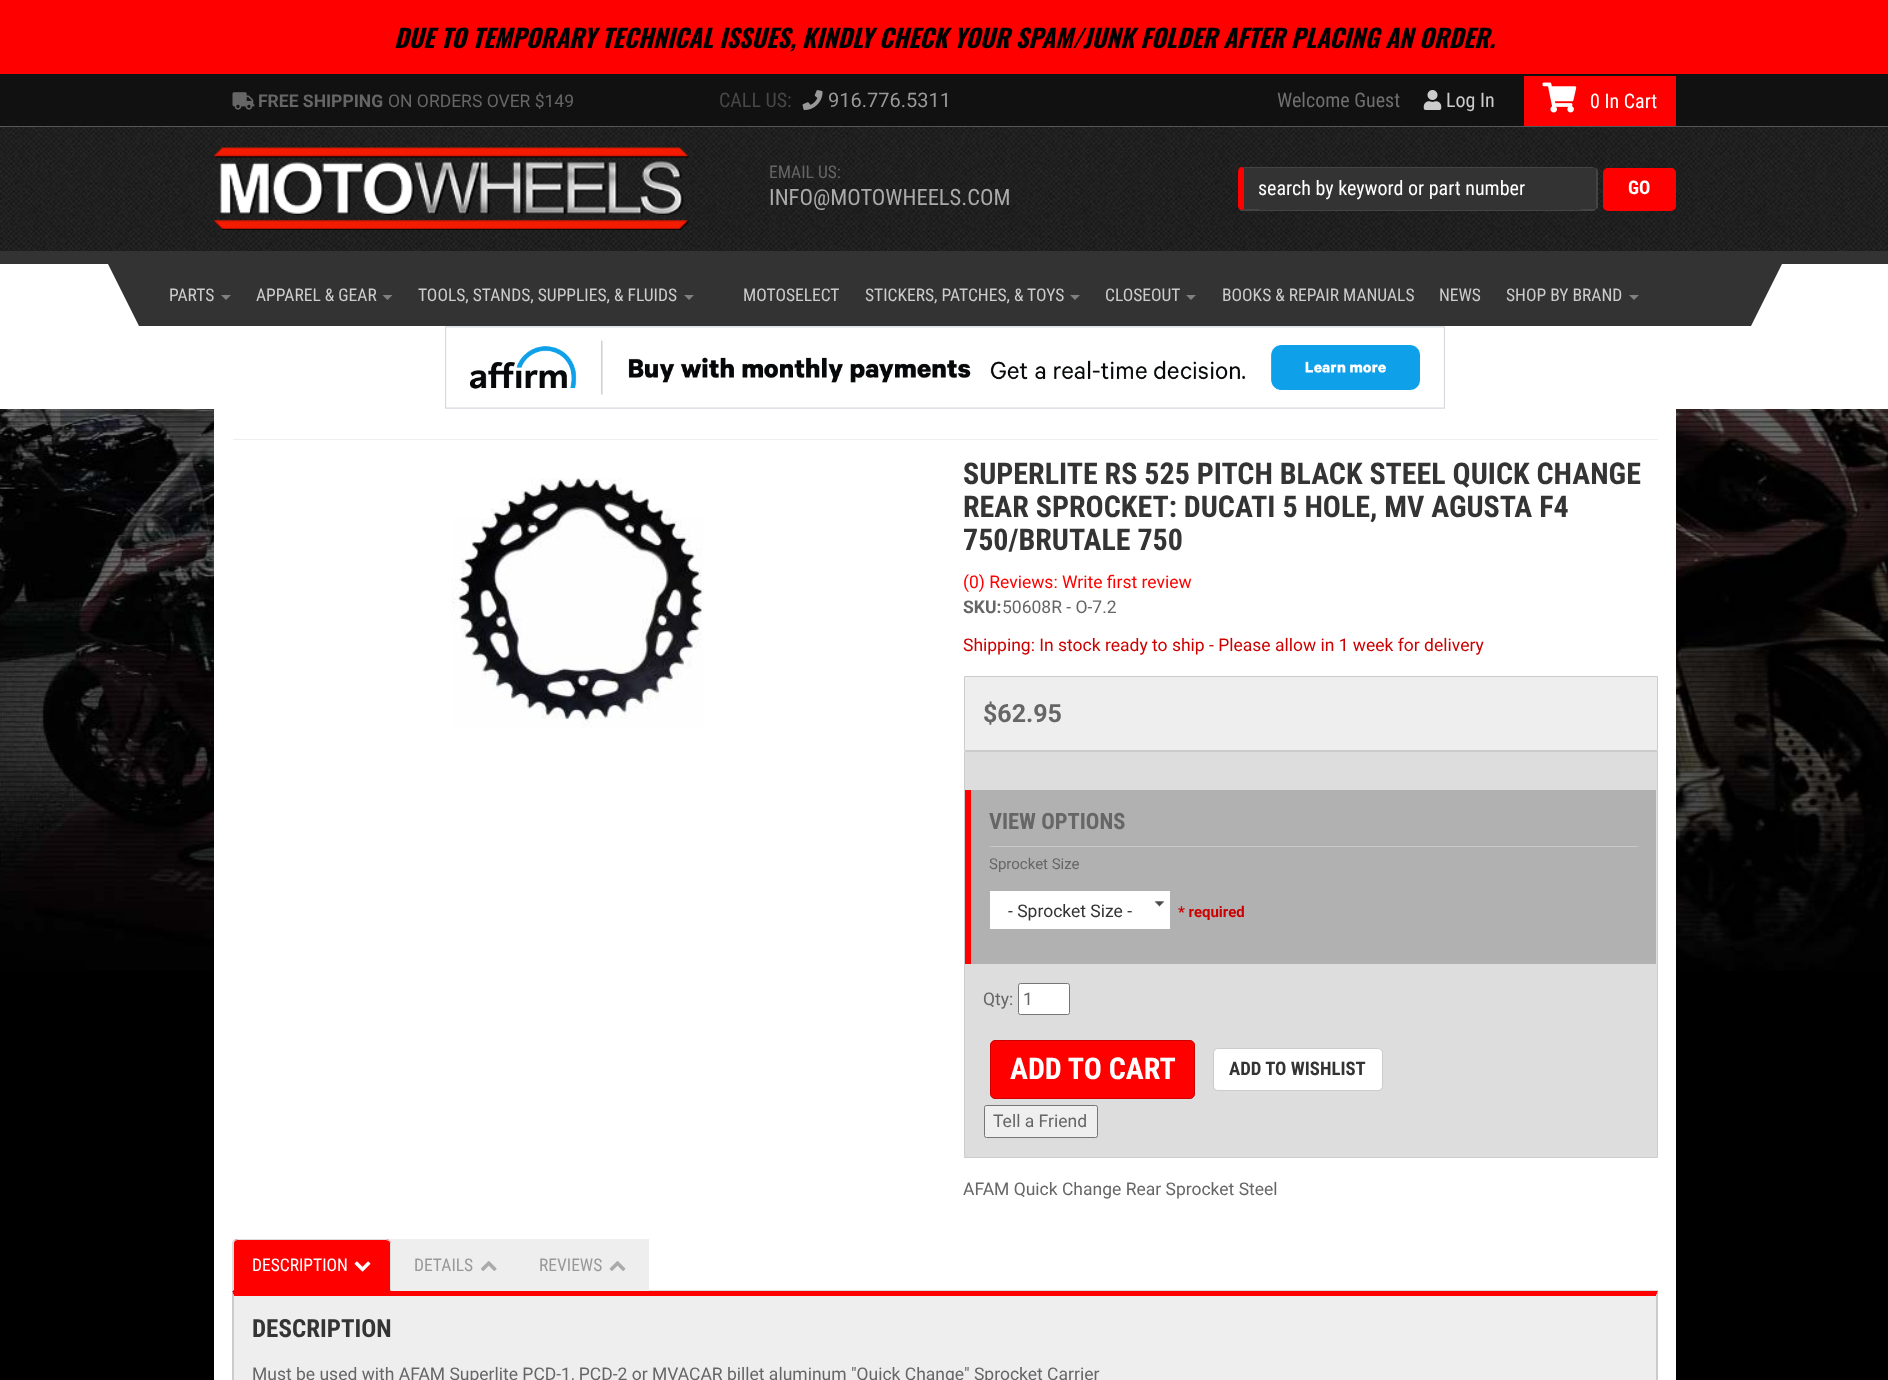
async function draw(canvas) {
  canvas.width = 1888;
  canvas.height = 1380;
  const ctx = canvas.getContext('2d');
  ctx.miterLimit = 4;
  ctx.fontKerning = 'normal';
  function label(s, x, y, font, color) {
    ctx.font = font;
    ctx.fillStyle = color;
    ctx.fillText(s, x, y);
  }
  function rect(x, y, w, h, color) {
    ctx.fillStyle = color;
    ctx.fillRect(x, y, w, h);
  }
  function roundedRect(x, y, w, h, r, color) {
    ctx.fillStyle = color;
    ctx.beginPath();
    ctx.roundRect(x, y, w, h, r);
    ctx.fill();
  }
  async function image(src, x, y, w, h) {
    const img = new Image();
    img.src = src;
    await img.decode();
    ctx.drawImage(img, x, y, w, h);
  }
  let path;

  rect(0, 0, 1888, 1380, '#fff');
  rect(0, 0, 1888, 74, '#f00');
  rect(0, 74, 1888, 52, '#111');
  ctx.letterSpacing = '-0.12px';
  label('DUE TO TEMPORARY TECHNICAL ISSUES, KINDLY CHECK YOUR SPAM/JUNK FOLDER AFTER PLACING AN ORDER.', 394, 48, 'italic bold 25px Oswald', '#000');
  await image('assets/img1.png', 232, 92, 23, 18);
  ctx.letterSpacing = '0px';
  label('FREE SHIPPING', 258, 107, 'bold 17.5px Roboto', '#666');
  label('ON ORDERS OVER $149', 388, 107, '17.5px Roboto', '#666');
  label('CALL US:', 719, 107, '20px Roboto Condensed', '#474747');
  await image('assets/img2.png', 802, 90, 21, 20);
  label('916.776.5311', 828, 107, '20px Roboto', '#999');
  label('Welcome Guest', 1277, 107, '20px Roboto Condensed', '#6f6f6f');
  await image('assets/img3.png', 1423, 90, 19, 20);
  label('Log In', 1446, 107, '20px Roboto Condensed', '#ccc');
  await image('assets/img4.png', 0, 126, 1888, 125);
  rect(1524, 76, 152, 50, '#f00');
  await image('assets/img5.png', 1542, 82, 35, 31);
  label('0 In Cart', 1590, 108, '20px Roboto Condensed', '#fff');
  await image('assets/img6.png', 213, 147, 476, 83);
  label('EMAIL US:', 769, 178, '17.5px Roboto Condensed', '#666');
  label('INFO@MOTOWHEELS.COM', 769, 205, '22.5px Roboto Condensed', '#aaa');
  ctx.fillStyle = '#333';
  path = new Path2D('M1244 168H1592C1595 168 1596 170 1596 172V206C1596 208 1595 209 1592 209H1244Z');
  ctx.fill(path);
  ctx.fillStyle = '#444';
  path = new Path2D('M1242 167H1240L1244 168H1592C1594 168 1594 168 1595 169L1596 168L1592 167Z');
  ctx.fill(path);
  path = new Path2D('M1596 168L1598 170V208L1596 209L1595 208C1596 208 1596 207 1596 206V172C1596 171 1596 170 1595 169Z');
  ctx.fill(path);
  path = new Path2D('M1241 211L1240 210L1246 209H1592C1594 209 1594 209 1595 208L1596 209L1594 211Z');
  ctx.fill(path);
  ctx.fillStyle = '#f00';
  path = new Path2D('M1240 167C1239 168 1238 170 1238 172V206C1238 207 1239 209 1240 210L1246 209H1244V168Z');
  ctx.fill(path);
  rect(1259, 209, 322, 1, '#333');
  label('search by keyword or part number', 1258, 195, '20px Roboto Condensed', '#fff');
  roundedRect(1603, 168, 73, 43, 5, '#f00');
  label('GO', 1628, 194, 'bold 18.75px Roboto Condensed', '#fff');
  rect(0, 251, 1888, 13, '#333');
  rect(139, 264, 1612, 62, '#333');
  path = new Path2D('M139 264V326L108 264Z');
  ctx.fill(path);
  label('PARTS', 169, 301, '17.5px Roboto Condensed', '#ccc');
  ctx.fillStyle = '#808080';
  path = new Path2D('M221 295H231L226 300Z');
  ctx.fill(path);
  label('APPAREL & GEAR', 256, 301, '17.5px Roboto Condensed', '#ccc');
  ctx.fillStyle = '#808080';
  path = new Path2D('M382.5 295H392.5L387.5 300Z');
  ctx.fill(path);
  label('TOOLS, STANDS, SUPPLIES, & FLUIDS', 418, 301, '17.5px Roboto Condensed', '#ccc');
  ctx.fillStyle = '#808080';
  path = new Path2D('M684 295H694L689 300Z');
  ctx.fill(path);
  label('MOTOSELECT', 743, 301, '17.5px Roboto Condensed', '#ccc');
  label('STICKERS, PATCHES, & TOYS', 865, 301, '17.5px Roboto Condensed', '#ccc');
  ctx.fillStyle = '#808080';
  path = new Path2D('M1070 295H1080L1075 300Z');
  ctx.fill(path);
  label('CLOSEOUT', 1105, 301, '17.5px Roboto Condensed', '#ccc');
  ctx.fillStyle = '#808080';
  path = new Path2D('M1186 295H1196L1191 300Z');
  ctx.fill(path);
  label('BOOKS & REPAIR MANUALS', 1222, 301, '17.5px Roboto Condensed', '#ccc');
  label('NEWS', 1439, 301, '17.5px Roboto Condensed', '#ccc');
  label('SHOP BY BRAND', 1506, 301, '17.5px Roboto Condensed', '#ccc');
  ctx.fillStyle = '#808080';
  path = new Path2D('M1629 295H1639L1634 300Z');
  ctx.fill(path);
  ctx.fillStyle = '#333';
  path = new Path2D('M1751 264H1782L1751 326Z');
  ctx.fill(path);
  await image('assets/img7.png', 445, 326, 1000, 83);
  rect(0, 971, 1888, 409, '#000');
  await image('assets/img8.png', 0, 409, 1888, 562);
  rect(214, 409, 1462, 971, '#fff');
  rect(233, 439, 1425, 1, '#eee');
  await image('assets/img9.png', 451, 478, 253, 250);
  label('SUPERLITE RS 525 PITCH BLACK STEEL QUICK CHANGE', 963, 484, 'bold 30px Roboto Condensed', '#343434');
  label('REAR SPROCKET: DUCATI 5 HOLE, MV AGUSTA F4', 963, 517, 'bold 30px Roboto Condensed', '#343434');
  label('750/BRUTALE 750', 963, 550, 'bold 30px Roboto Condensed', '#343434');
  label('(0) Reviews: Write first review', 963, 588, '17.5px Roboto', '#f00');
  label('SKU:', 963, 613, 'bold 17.5px Roboto', '#666');
  label('50608R - O-7.2', 1002, 613, '17.5px Roboto', '#666');
  label('Shipping: In stock ready to ship - Please allow in 1 week for delivery', 963, 651, '17.5px Roboto', '#c00');
  ctx.fillStyle = '#eee';
  ctx.beginPath();
  ctx.rect(964.5, 676.5, 693, 74);
  ctx.fill();
  ctx.strokeStyle = '#ccc';
  ctx.stroke();
  label('$62.95', 983, 722, 'bold 25px Roboto', '#666');
  ctx.fillStyle = '#ddd';
  ctx.beginPath();
  ctx.rect(964.5, 751.5, 693, 406);
  ctx.fill();
  ctx.stroke();
  rect(971, 790, 685, 174, '#b1b1b1');
  rect(965, 790, 6, 174, '#f00');
  rect(990, 846, 648, 1, '#c8c8c8');
  label('VIEW OPTIONS', 989, 829, 'bold 22.5px Roboto Condensed', '#666');
  label('Sprocket Size', 989, 869, '15px Roboto', '#666');
  rect(990, 891, 180, 38, '#fff');
  await image('assets/img10.png', 1154, 901, 10, 6);
  label('- Sprocket Size -', 1008, 917, '17.5px Roboto', '#343434');
  label('* required', 1178, 917, 'bold 15px Roboto', '#c00');
  label('Qty:', 983, 1005, '17.5px Roboto', '#666');
  ctx.fillStyle = '#fff';
  ctx.beginPath();
  ctx.roundRect(1018.5, 983.5, 51, 31, 2);
  ctx.fill();
  ctx.strokeStyle = '#767676';
  ctx.stroke();
  label('1', 1023, 1005, '17.5px Roboto', '#666');
  ctx.fillStyle = '#f00';
  ctx.beginPath();
  ctx.roundRect(990.5, 1040.5, 204, 58, 4.5);
  ctx.fill();
  ctx.strokeStyle = '#c00';
  ctx.stroke();
  label('ADD TO CART', 1010, 1079, 'bold 30px Roboto Condensed', '#fff');
  ctx.beginPath();
  ctx.roundRect(1213.5, 1048.5, 169, 42, 4.5);
  ctx.fill();
  ctx.strokeStyle = '#ccc';
  ctx.stroke();
  label('ADD TO WISHLIST', 1229, 1075, 'bold 18.75px Roboto Condensed', '#343434');
  ctx.fillStyle = '#efefef';
  ctx.beginPath();
  ctx.roundRect(984.5, 1105.5, 113, 32, 2);
  ctx.fill();
  ctx.strokeStyle = '#767676';
  ctx.stroke();
  label('Tell a Friend', 993, 1127, '17.5px Roboto', '#666');
  label('AFAM Quick Change Rear Sprocket Steel', 963, 1195, '17.5px Roboto', '#666');
  rect(649, 1290, 1009, 1, '#ddd');
  rect(233, 1239, 416, 52, '#eee');
  ctx.fillStyle = '#f00';
  ctx.beginPath();
  ctx.roundRect(233, 1239, 158, 52, [5, 5, 0, 0]);
  ctx.fill();
  ctx.fillStyle = '#ddd';
  path = new Path2D('M238 1239L234 1240L235 1241C236 1240 237 1240 238 1240H386L389 1241L390 1240C389 1240 388 1239 386 1239Z');
  ctx.fill(path);
  path = new Path2D('M391 1291V1244C391 1242 390 1241 390 1240L389 1241C390 1242 390 1243 390 1244V1290Z');
  ctx.fill(path);
  path = new Path2D('M232 1242L234 1240L235 1241C234 1242 234 1243 234 1244V1290L232 1291Z');
  ctx.fill(path);
  label('DESCRIPTION', 252, 1271, '17.5px Roboto Condensed', '#fff');
  await image('assets/img11.png', 354, 1261, 17, 11);
  label('DETAILS', 414, 1271, '17.5px Roboto Condensed', '#999');
  await image('assets/img12.png', 481, 1261, 16, 10);
  label('REVIEWS', 539, 1271, '17.5px Roboto Condensed', '#999');
  await image('assets/img13.png', 609, 1261, 17, 10);
  rect(234, 1296, 1422, 84, '#eee');
  ctx.fillStyle = '#f00';
  path = new Path2D('M232 1291H1658L1656 1296H234Z');
  ctx.fill(path);
  ctx.fillStyle = '#ccc';
  path = new Path2D('M1658 1291V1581L1656 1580V1296Z');
  ctx.fill(path);
  path = new Path2D('M232 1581V1291L234 1296V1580Z');
  ctx.fill(path);
  label('DESCRIPTION', 252, 1337, 'bold 25px Roboto Condensed', '#343434');
  label('Must be used with AFAM Superlite PCD-1, PCD-2 or MVACAR billet aluminum "Quick Change" Sprocket Carrier', 252, 1380, '17.5px Roboto', '#666');
}

draw(document.querySelector('canvas'));
